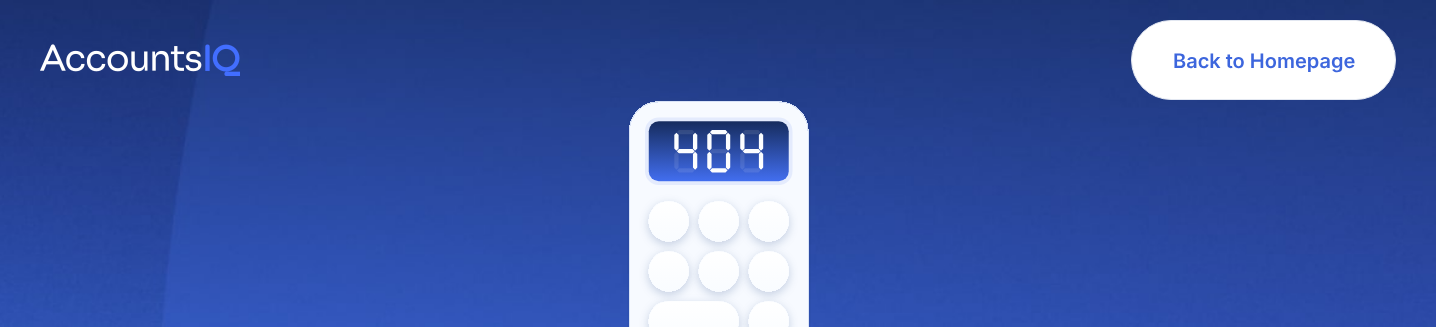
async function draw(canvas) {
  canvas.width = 1436;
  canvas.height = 327;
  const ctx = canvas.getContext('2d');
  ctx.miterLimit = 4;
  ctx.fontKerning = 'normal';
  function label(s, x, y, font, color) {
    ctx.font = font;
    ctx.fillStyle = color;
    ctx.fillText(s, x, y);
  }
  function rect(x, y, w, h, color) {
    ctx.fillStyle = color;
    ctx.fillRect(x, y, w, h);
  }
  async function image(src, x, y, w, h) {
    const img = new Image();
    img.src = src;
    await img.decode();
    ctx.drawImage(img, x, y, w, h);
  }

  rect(0, 0, 1436, 327, '#fff');
  await image('assets/img1.png', 0, 0, 1436, 327);
  await image('assets/img2.png', 40, 44, 200, 32);
  ctx.beginPath();
  ctx.roundRect(1131.5, 20.5, 264, 79, 39.5);
  ctx.fill();
  ctx.strokeStyle = '#e2e7f1';
  ctx.stroke();
  label('Back to Homepage', 1173, 68, '600 20px Inter', '#3d66dd');
  await image('assets/img3.png', 627, 101, 184, 226);
}

draw(document.querySelector('canvas'));
